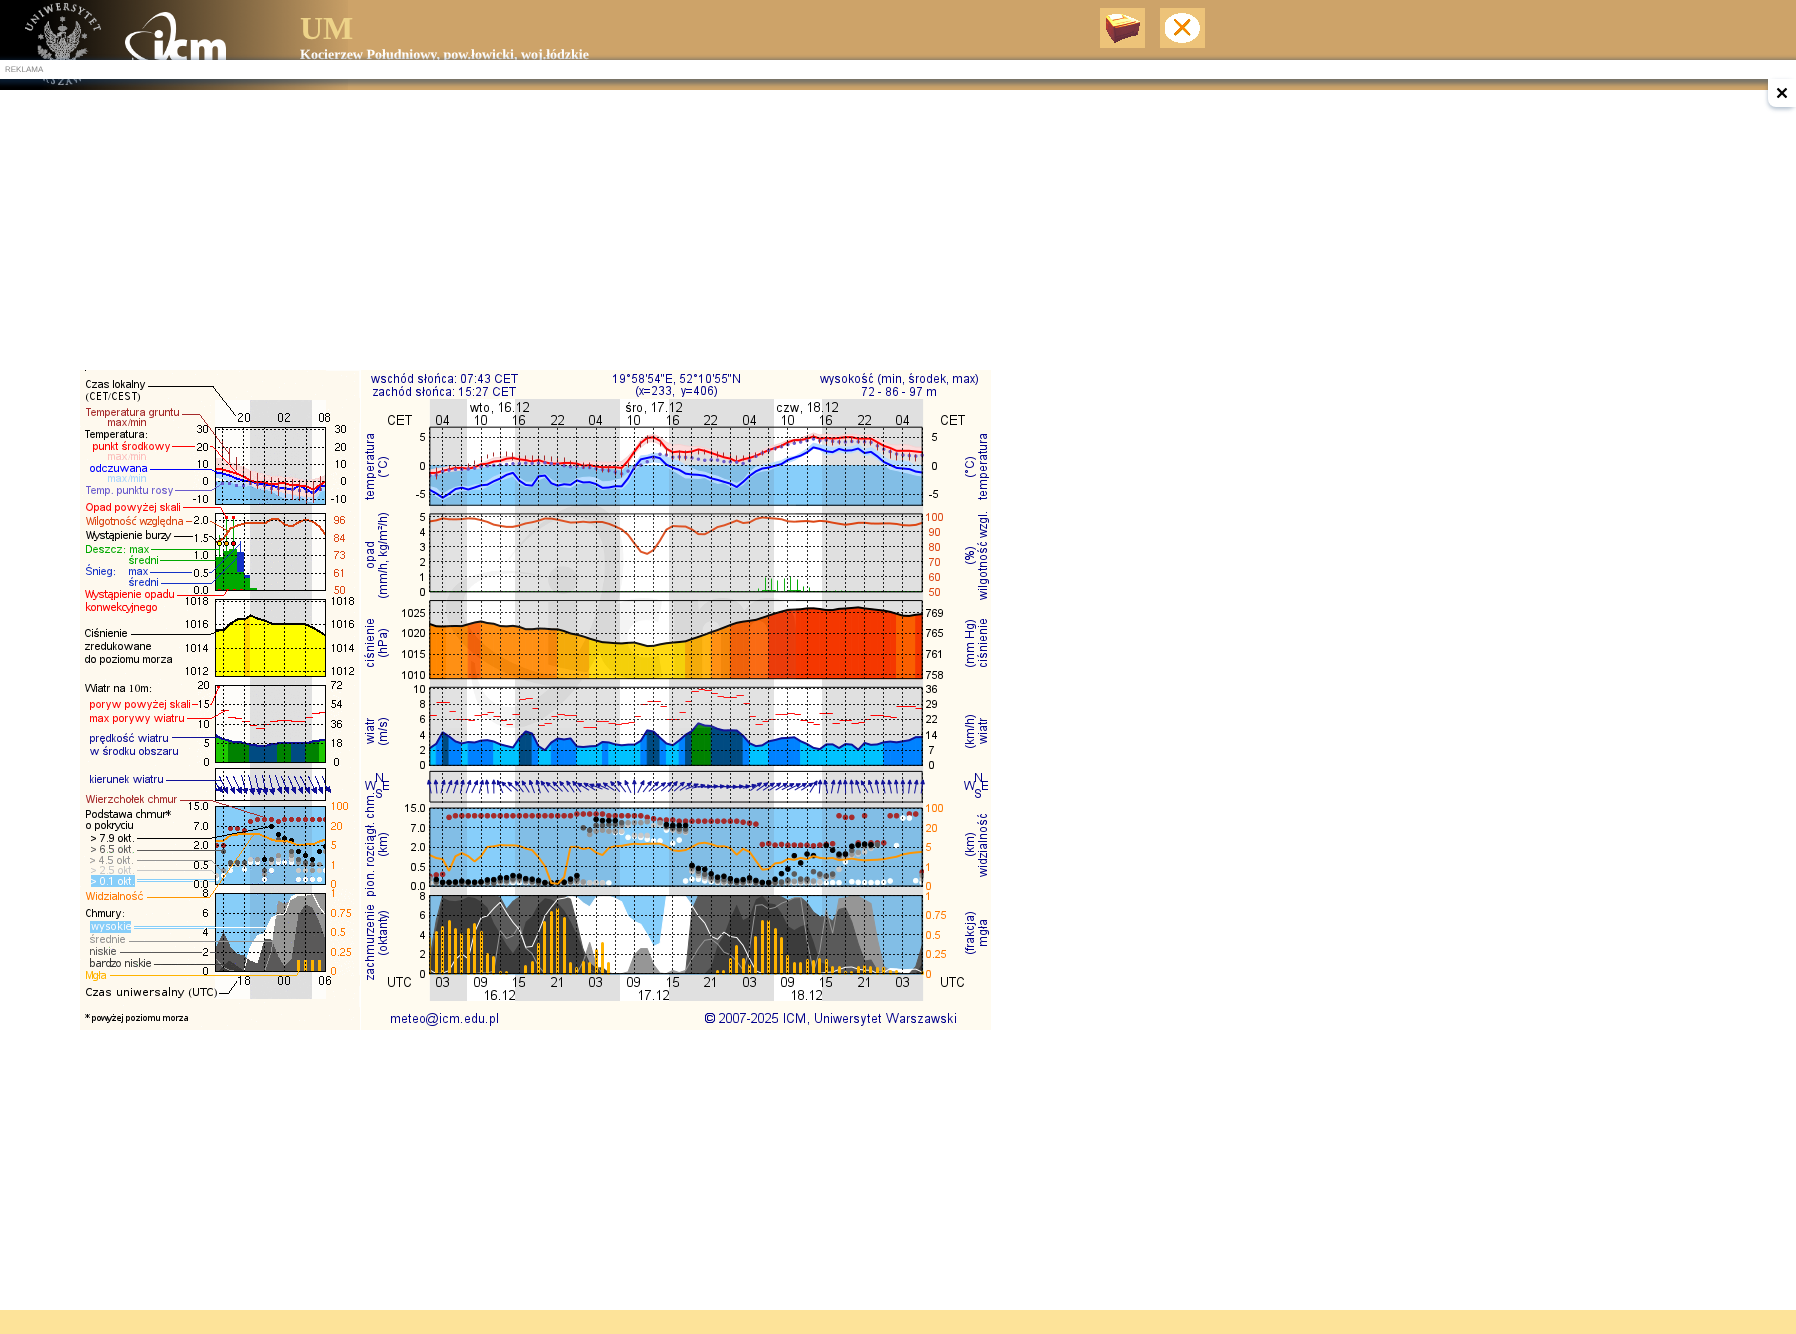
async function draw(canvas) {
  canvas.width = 1796;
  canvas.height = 1334;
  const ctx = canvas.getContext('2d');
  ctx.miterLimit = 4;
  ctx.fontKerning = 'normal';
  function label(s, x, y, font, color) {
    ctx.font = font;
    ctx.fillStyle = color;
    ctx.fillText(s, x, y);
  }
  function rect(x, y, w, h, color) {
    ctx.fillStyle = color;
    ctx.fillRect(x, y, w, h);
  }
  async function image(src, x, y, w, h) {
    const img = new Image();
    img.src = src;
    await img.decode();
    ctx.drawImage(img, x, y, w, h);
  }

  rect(0, 0, 1796, 1334, '#fff');
  rect(41, 0, 1755, 90, '#cda369');
  await image('assets/img1.png', 0, 0, 348, 90);
  await image('assets/img2.png', 25, 3, 76, 82);
  await image('assets/img3.png', 125, 12, 101, 48);
  label('UM', 300, 39, 'bold 32px Liberation Serif', '#edd389');
  label('Kocierzew Południowy, pow.łowicki, woj.łódzkie', 300, 59, 'bold 14px Liberation Serif', '#fff');
  rect(1100, 8, 45, 40, '#edc379');
  await image('assets/img4.png', 1106, 14, 34, 29);
  rect(1160, 8, 45, 40, '#edc379');
  await image('assets/img5.png', 1165, 13, 35, 30);
  ctx.fillStyle = '#113a6673';
  ctx.filter = 'blur(2px)';
  ctx.beginPath();
  ctx.rect(-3, 59, 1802, 25);
  ctx.fill();
  ctx.filter = 'none';
  rect(0, 60, 1796, 19, '#fff');
  label('REKLAMA', 5, 72, '8px Liberation Sans', '#888');
  ctx.fillStyle = '#113a6659';
  ctx.filter = 'blur(2px)';
  ctx.beginPath();
  ctx.roundRect(1768, 81, 28, 28, 8);
  ctx.fill();
  ctx.filter = 'none';
  ctx.fillStyle = '#fff';
  ctx.beginPath();
  ctx.roundRect(1768, 79, 28, 28, [0, 0, 0, 8]);
  ctx.fill();
  await image('assets/img6.png', 1776, 87, 12, 12);
  await image('assets/img7.png', 80, 370, 280, 660);
  await image('assets/img8.png', 361, 370, 630, 660);
  rect(0, 1310, 1796, 24, '#fde399');
}

draw(document.querySelector('canvas'));
